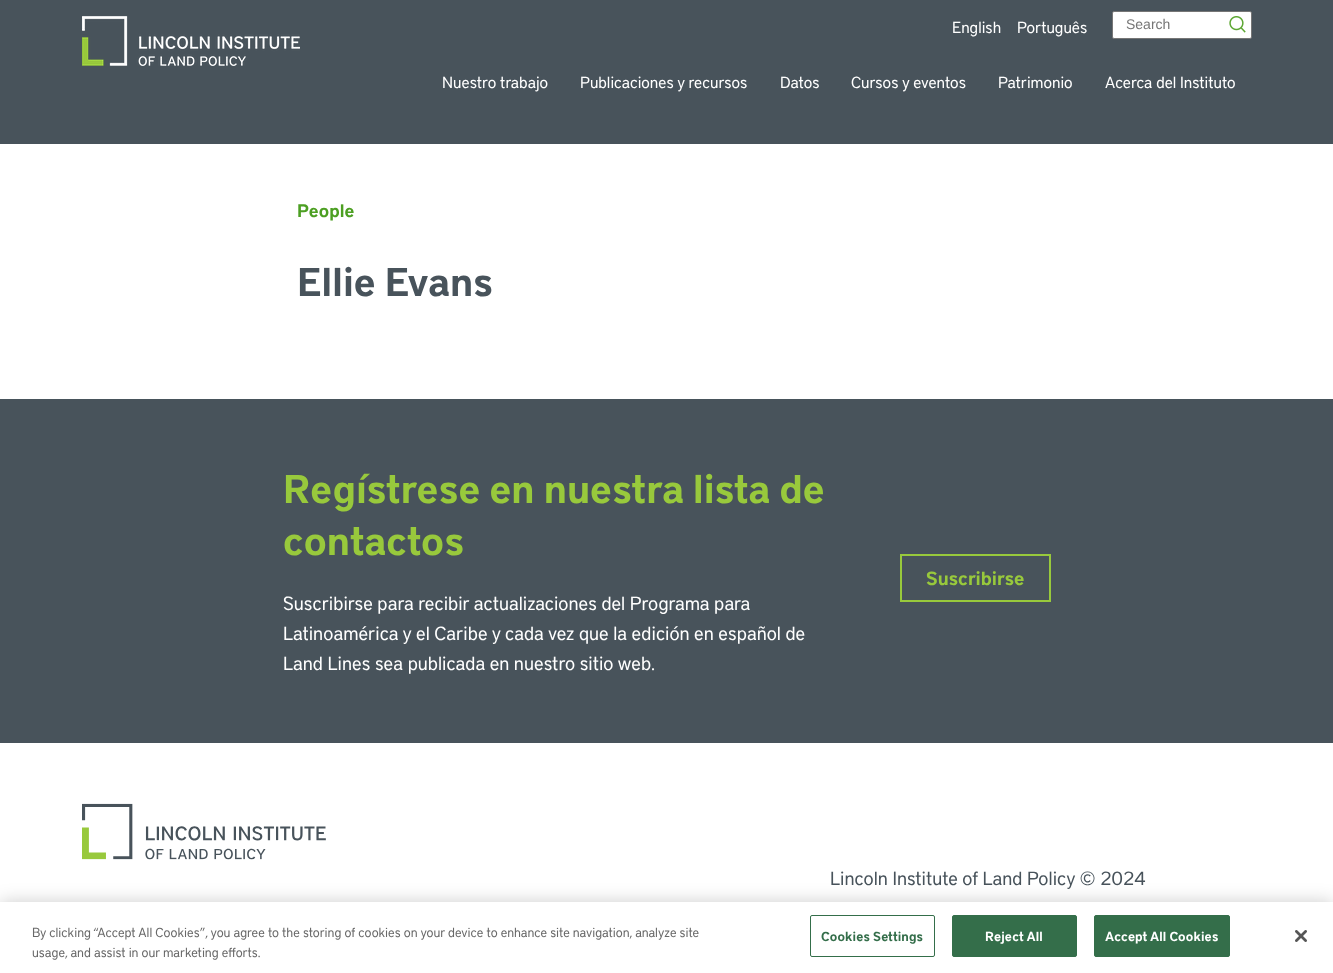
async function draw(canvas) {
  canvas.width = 1333;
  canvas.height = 973;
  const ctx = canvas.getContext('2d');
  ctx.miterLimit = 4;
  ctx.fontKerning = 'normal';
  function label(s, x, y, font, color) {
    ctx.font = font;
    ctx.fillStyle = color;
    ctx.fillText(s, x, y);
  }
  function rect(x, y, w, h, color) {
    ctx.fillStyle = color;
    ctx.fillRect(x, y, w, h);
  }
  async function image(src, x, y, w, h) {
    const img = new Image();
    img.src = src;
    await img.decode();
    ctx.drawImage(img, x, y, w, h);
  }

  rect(0, 0, 1333, 973, '#fff');
  rect(0, 0, 1333, 144, '#48535b');
  await image('assets/img1.png', 82, 16, 218, 50);
  label('English', 952, 33, '16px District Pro', '#fff');
  label('Português', 1017, 33, '16px District Pro', '#fff');
  ctx.beginPath();
  ctx.roundRect(1112.5, 11.5, 139, 27, 1.5);
  ctx.fill();
  ctx.strokeStyle = '#767676';
  ctx.stroke();
  label('Search', 1126, 29, '14px Liberation Sans', '#757575');
  await image('assets/img2.png', 1229, 16, 17, 17);
  label('Nuestro trabajo', 442, 88, '16px District Pro', '#fff');
  label('Publicaciones y recursos', 580, 88, '16px District Pro', '#fff');
  label('Datos', 780, 88, '16px District Pro', '#fff');
  label('Cursos y eventos', 851, 88, '16px District Pro', '#fff');
  label('Patrimonio', 998, 88, '16px District Pro', '#fff');
  label('Acerca del Instituto', 1105, 88, '16px District Pro', '#fff');
  label('People', 297, 217, '600 18px District Pro', '#4c9f22');
  label('Ellie Evans', 297, 296, '600 40px District Pro', '#48535b');
  rect(0, 399, 1333, 344, '#48535b');
  label('Regístrese en nuestra lista de', 283, 503, '600 40px District Pro', '#98c93c');
  label('contactos', 283, 555, '600 40px District Pro', '#98c93c');
  label('Suscribirse para recibir actualizaciones del Programa para', 283, 610, '19px District Pro', '#fff');
  label('Latinoamérica y el Caribe y cada vez que la edición en español de', 283, 640, '19px District Pro', '#fff');
  label('Land Lines sea publicada en nuestro sitio web.', 283, 670, '19px District Pro', '#fff');
  ctx.strokeStyle = '#98c93c';
  ctx.lineWidth = 2;
  ctx.strokeRect(901, 555, 149, 46);
  label('Suscribirse', 926, 585, '600 19px District Pro', '#98c93c');
  await image('assets/img3.png', 82, 803, 244, 57);
  label('Lincoln Institute of Land Policy © 2024', 830, 885, '19px District Pro', '#48535b');
  ctx.fillStyle = '#00000033';
  ctx.filter = 'blur(9px)';
  ctx.beginPath();
  ctx.rect(0, 902, 1333, 71);
  ctx.fill();
  ctx.filter = 'none';
  rect(0, 902, 1333, 71, '#fff');
  label('By clicking “Accept All Cookies”, you agree to the storing of cookies on your device to enhance site navigation, analyze site', 32, 937, '13px District Pro', '#696969');
  label('usage, and assist in our marketing efforts.', 32, 957, '13px District Pro', '#696969');
  ctx.beginPath();
  ctx.roundRect(810.5, 915.5, 124, 41, 1.5);
  ctx.strokeStyle = '#346e4a';
  ctx.lineWidth = 1;
  ctx.stroke();
  ctx.letterSpacing = '0.1px';
  label('Cookies Settings', 821, 941, '600 13px District Pro', '#346e4a');
  ctx.beginPath();
  ctx.roundRect(952.5, 915.5, 124, 41, 1.5);
  ctx.fill();
  ctx.stroke();
  label('Reject All', 985, 941, '600 13px District Pro', '#fff');
  ctx.fillStyle = '#346e4a';
  ctx.beginPath();
  ctx.roundRect(1094.5, 915.5, 135, 41, 1.5);
  ctx.fill();
  ctx.stroke();
  label('Accept All Cookies', 1105, 941, '600 13px District Pro', '#fff');
  await image('assets/img4.png', 1295, 930, 12, 12);
}

draw(document.querySelector('canvas'));
